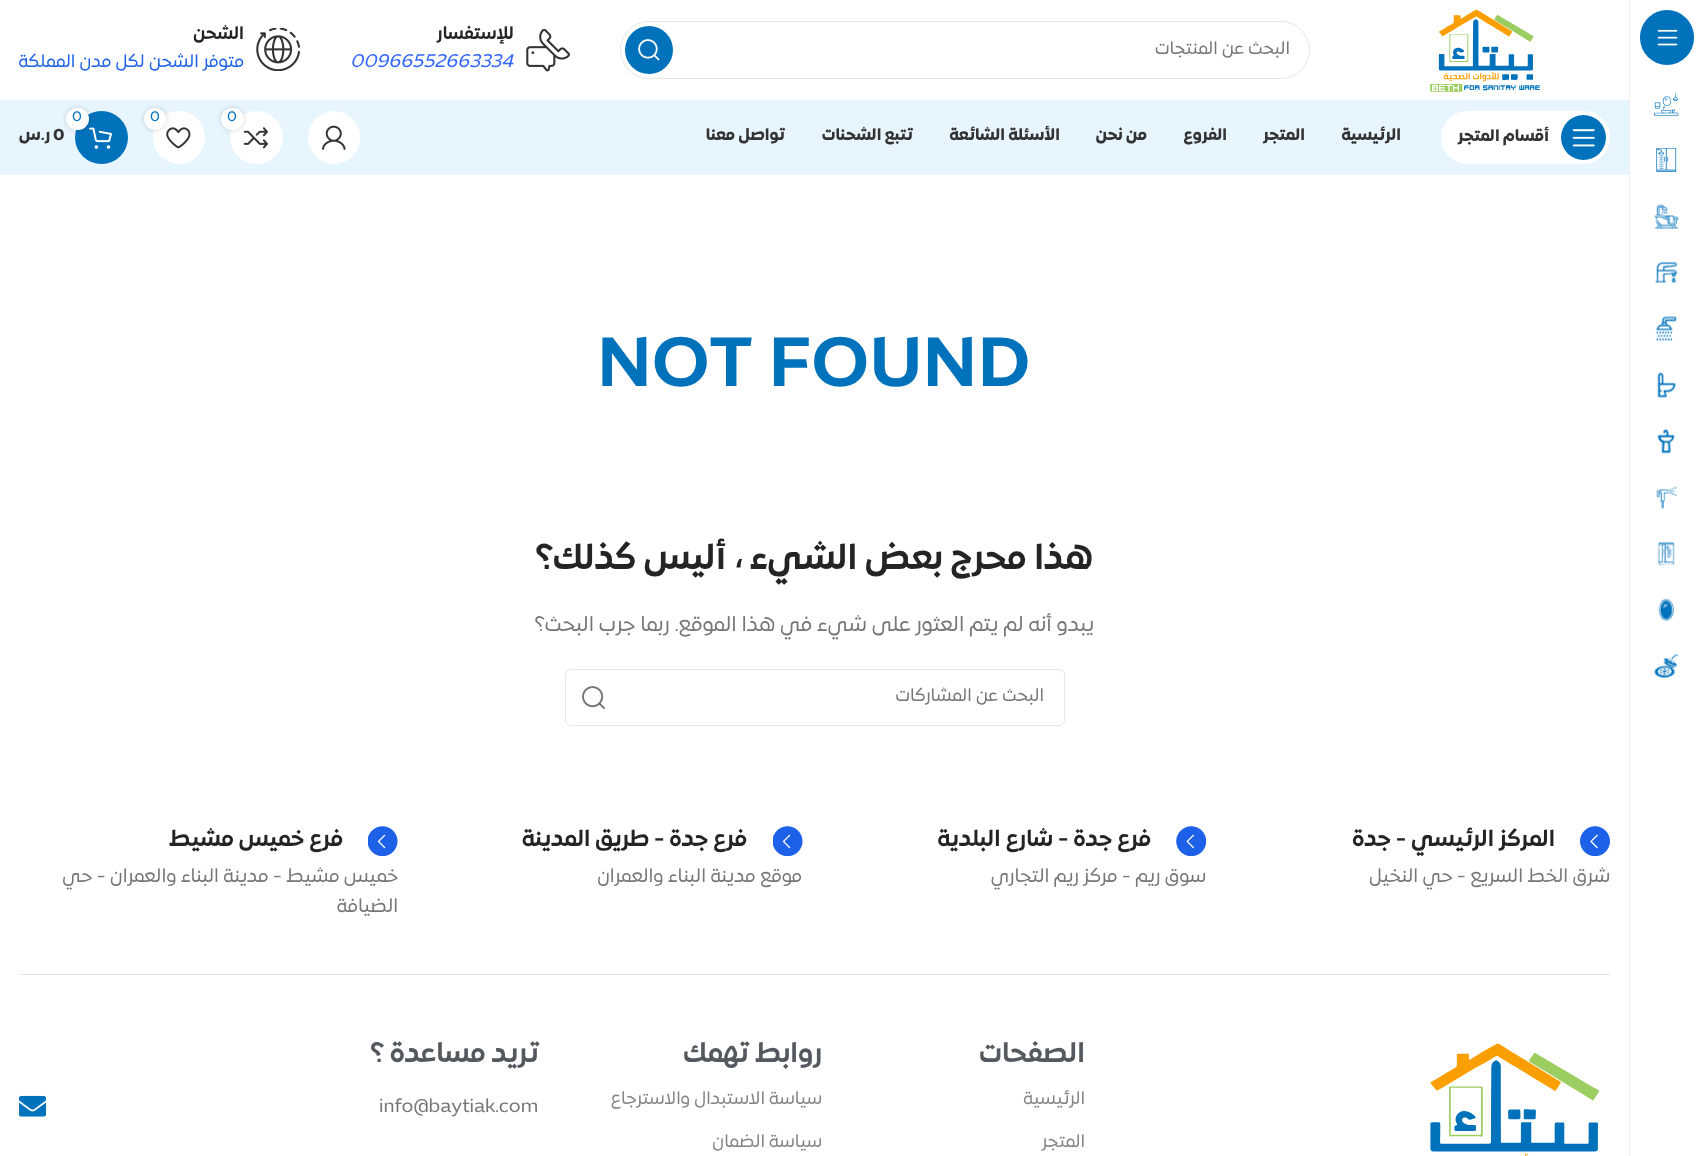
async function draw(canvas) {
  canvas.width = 1703;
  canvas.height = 1156;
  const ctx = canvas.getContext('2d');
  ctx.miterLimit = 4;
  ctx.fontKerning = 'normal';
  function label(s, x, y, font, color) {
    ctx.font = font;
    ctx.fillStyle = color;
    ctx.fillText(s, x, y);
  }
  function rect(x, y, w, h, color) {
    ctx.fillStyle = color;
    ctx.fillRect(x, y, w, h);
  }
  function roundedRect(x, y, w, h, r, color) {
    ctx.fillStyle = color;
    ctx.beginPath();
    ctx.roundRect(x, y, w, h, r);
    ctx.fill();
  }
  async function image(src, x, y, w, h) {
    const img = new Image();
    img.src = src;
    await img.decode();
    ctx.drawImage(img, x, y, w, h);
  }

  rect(0, 0, 1703, 1156, '#fff');
  rect(1629, 0, 1, 1156, '#efefef');
  roundedRect(1640, 10, 54, 55, 27, '#0072bc');
  await image('assets/img1.png', 1657, 29, 21, 17);
  await image('assets/img2.png', 1654, 93, 25, 23);
  await image('assets/img3.png', 1656, 148, 21, 24);
  await image('assets/img4.png', 1654, 204, 25, 25);
  await image('assets/img5.png', 1655, 262, 23, 21);
  await image('assets/img6.png', 1655, 316, 22, 25);
  await image('assets/img7.png', 1657, 372, 19, 26);
  await image('assets/img8.png', 1657, 429, 18, 25);
  await image('assets/img9.png', 1656, 486, 21, 23);
  await image('assets/img10.png', 1657, 542, 18, 24);
  await image('assets/img11.png', 1658, 598, 16, 23);
  await image('assets/img12.png', 1654, 654, 24, 24);
  await image('assets/img13.png', 1430, 9, 110, 83);
  ctx.beginPath();
  ctx.roundRect(620.5, 21.5, 689, 57, 28.5);
  ctx.strokeStyle = '#e6e6e6';
  ctx.stroke();
  ctx.direction = 'rtl';
  label('البحث عن المنتجات', 1290, 54, '17.5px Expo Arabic', '#767676');
  ctx.fillStyle = '#0072bc';
  ctx.beginPath();
  ctx.arc(649, 50, 24, 0, 2 * Math.PI);
  ctx.fill();
  await image('assets/img14.png', 638, 39, 22, 22);
  await image('assets/img15.png', 526, 29, 44, 43);
  label('للإستفسار', 514, 39, '600 17.5px Expo Arabic', '#242424');
  ctx.direction = 'ltr';
  label('00966552663334', 350, 67, 'italic 18.75px Expo Arabic', '#36f');
  await image('assets/img16.png', 256, 28, 44, 43);
  ctx.direction = 'rtl';
  label('الشحن', 244, 39, '600 17.5px Expo Arabic', '#242424');
  label('متوفر الشحن لكل مدن المملكة', 244, 67, '17.5px Expo Arabic', '#1c61e7');
  rect(0, 100, 1629, 75, '#e7f5ff');
  roundedRect(1441, 111, 169, 53, 26.5, '#fff');
  ctx.fillStyle = '#0072bc';
  ctx.beginPath();
  ctx.arc(1583.5, 137.5, 22.5, 0, 2 * Math.PI);
  ctx.fill();
  await image('assets/img17.png', 1572, 129, 23, 18);
  label('أقسام المتجر', 1549, 141, 'bold 16.25px Expo Arabic', '#333');
  label('الرئيسية', 1401, 140, 'bold 16.25px Expo Arabic', '#333');
  label('المتجر', 1305, 140, 'bold 16.25px Expo Arabic', '#333');
  label('الفروع', 1227, 140, 'bold 16.25px Expo Arabic', '#333');
  label('من نحن', 1147, 140, 'bold 16.25px Expo Arabic', '#333');
  label('الأسئلة الشائعة', 1060, 140, 'bold 16.25px Expo Arabic', '#333');
  label('تتبع الشحنات', 913, 140, 'bold 16.25px Expo Arabic', '#333');
  label('تواصل معنا', 785, 140, 'bold 16.25px Expo Arabic', '#333');
  roundedRect(308, 111, 52, 53, 26, '#fff');
  await image('assets/img18.png', 322, 125, 24, 25);
  ctx.beginPath();
  ctx.arc(256.5, 137.5, 26.5, 0, 2 * Math.PI);
  ctx.fill();
  await image('assets/img19.png', 243, 127, 25, 22);
  ctx.fillStyle = '#0000002b';
  ctx.filter = 'blur(2.5px)';
  ctx.beginPath();
  ctx.roundRect(221, 108, 23, 22, 11);
  ctx.fill();
  ctx.filter = 'none';
  roundedRect(221, 108, 23, 22, 11, '#fff');
  ctx.direction = 'ltr';
  label('0', 227, 121, '14px Expo Arabic', '#0072bc');
  roundedRect(153, 111, 52, 53, 26, '#fff');
  await image('assets/img20.png', 166, 127, 25, 22);
  ctx.fillStyle = '#0000002b';
  ctx.filter = 'blur(2.5px)';
  ctx.beginPath();
  ctx.roundRect(144, 108, 22, 22, 11);
  ctx.fill();
  ctx.filter = 'none';
  ctx.fillStyle = '#fff';
  ctx.beginPath();
  ctx.arc(155, 119, 11, 0, 2 * Math.PI);
  ctx.fill();
  label('0', 150, 121, '14px Expo Arabic', '#0072bc');
  ctx.beginPath();
  ctx.arc(101.5, 137.5, 26.5, 0, 2 * Math.PI);
  ctx.fill();
  await image('assets/img21.png', 89, 127, 23, 22);
  ctx.fillStyle = '#0000002b';
  ctx.filter = 'blur(2.5px)';
  ctx.beginPath();
  ctx.roundRect(66, 108, 23, 22, 11);
  ctx.fill();
  ctx.filter = 'none';
  roundedRect(66, 108, 23, 22, 11, '#fff');
  label('0', 72, 121, '14px Expo Arabic', '#0072bc');
  label('0', 53, 140, 'bold 16.25px Expo Arabic', '#333');
  ctx.direction = 'rtl';
  label('ر.س', 50, 140, 'bold 16.25px Expo Arabic', '#333');
  ctx.direction = 'ltr';
  label('NOT FOUND', 597, 386, '600 71.5px Expo Arabic', '#0072bc');
  ctx.direction = 'rtl';
  label('هذا محرج بعض الشيء ، أليس كذلك؟', 1093, 569, '600 35px Expo Arabic', '#242424');
  label('يبدو أنه لم يتم العثور على شيء في هذا الموقع. ربما جرب البحث؟', 1094, 631, '20.6px Expo Arabic', '#767676');
  ctx.beginPath();
  ctx.roundRect(565.5, 669.5, 499, 56, 5.5);
  ctx.stroke();
  label('البحث عن المشاركات', 1044, 701, '17.5px Expo Arabic', '#767676');
  await image('assets/img22.png', 582, 686, 23, 24);
  rect(19, 974, 1591, 1, '#e4e4e4');
  await image('assets/img23.png', 1580, 826, 30, 30);
  label('المركز الرئيسي - جدة', 1555, 846, '600 22.5px Expo Arabic', '#242424');
  label('شرق الخط السريع - حي النخيل', 1610, 882, '18.75px Expo Arabic', '#767676');
  await image('assets/img24.png', 1176, 826, 30, 30);
  label('فرع جدة - شارع البلدية', 1151, 846, '600 22.5px Expo Arabic', '#242424');
  label('سوق ريم - مركز ريم التجاري', 1206, 882, '18.75px Expo Arabic', '#767676');
  await image('assets/img25.png', 773, 826, 30, 30);
  label('فرع جدة - طريق المدينة', 747, 846, '600 22.5px Expo Arabic', '#242424');
  label('موقع مدينة البناء والعمران', 802, 882, '18.75px Expo Arabic', '#767676');
  await image('assets/img25.png', 368, 826, 30, 30);
  label('فرع خميس مشيط', 343, 846, '600 22.5px Expo Arabic', '#242424');
  label('خميس مشيط - مدينة البناء والعمران - حي', 398, 882, '18.75px Expo Arabic', '#767676');
  label('الضيافة', 398, 912, '18.75px Expo Arabic', '#767676');
  await image('assets/img26.png', 1430, 1043, 170, 113);
  label('الصفحات', 1085, 1062, '600 27.5px Expo Arabic', '#54595f');
  label('الرئيسية', 1085, 1104, '17.5px Expo Arabic', '#838383');
  label('المتجر', 1085, 1147, '17.5px Expo Arabic', '#838383');
  label('روابط تهمك', 822, 1062, '600 27.5px Expo Arabic', '#54595f');
  label('سياسة الاستبدال والاسترجاع', 822, 1104, '17.5px Expo Arabic', '#838383');
  label('سياسة الضمان', 822, 1147, '17.5px Expo Arabic', '#838383');
  label('تريد مساعدة ؟', 539, 1062, '600 27.5px Expo Arabic', '#54595f');
  ctx.direction = 'ltr';
  label('info@baytiak.com', 379, 1112, '18.75px Expo Arabic', '#767676');
  await image('assets/img27.png', 19, 1095, 27, 22);
}

draw(document.querySelector('canvas'));
